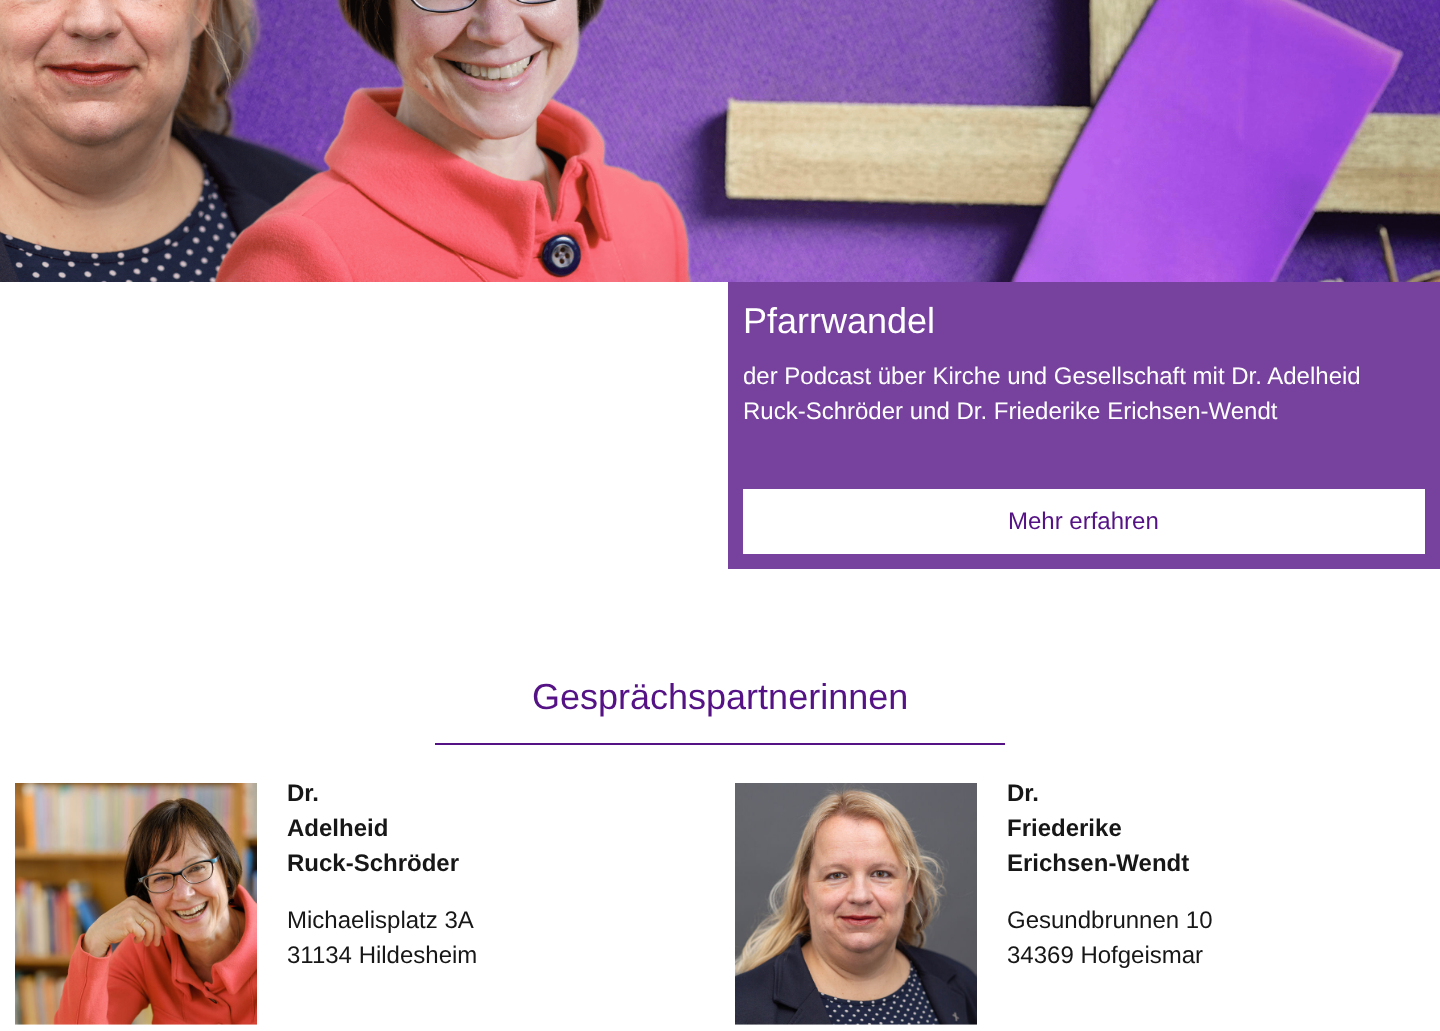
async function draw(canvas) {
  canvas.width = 1440;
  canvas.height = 1031;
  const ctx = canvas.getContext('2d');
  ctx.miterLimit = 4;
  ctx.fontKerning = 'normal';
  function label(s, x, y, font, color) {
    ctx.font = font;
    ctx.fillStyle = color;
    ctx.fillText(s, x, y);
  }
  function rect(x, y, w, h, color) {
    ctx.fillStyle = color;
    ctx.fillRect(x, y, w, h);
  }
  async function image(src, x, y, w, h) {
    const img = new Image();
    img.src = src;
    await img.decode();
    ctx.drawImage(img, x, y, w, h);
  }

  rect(0, 0, 1440, 1031, '#fff');
  await image('assets/img1.png', 0, 0, 1440, 282);
  rect(728, 282, 712, 287, '#77429e');
  label('Pfarrwandel', 743, 333, '36px Liberation Sans', '#fff');
  label('der Podcast über Kirche und Gesellschaft mit Dr. Adelheid', 743, 384, '24px Liberation Sans', '#fff');
  label('Ruck-Schröder und Dr. Friederike Erichsen-Wendt', 743, 419, '24px Liberation Sans', '#fff');
  rect(743, 489, 682, 65, '#fff');
  label('Mehr erfahren', 1008, 529, '24px Liberation Sans', '#551285');
  rect(435, 743, 570, 2, '#551285');
  label('Gesprächspartnerinnen', 532, 709, '36px Liberation Sans', '#551285');
  await image('assets/img2.png', 15, 783, 242, 242);
  label('Dr.', 287, 801, 'bold 24px Liberation Sans', '#171717');
  label('Adelheid', 287, 836, 'bold 24px Liberation Sans', '#171717');
  label('Ruck-Schröder', 287, 871, 'bold 24px Liberation Sans', '#171717');
  label('Michaelisplatz 3A', 287, 928, '24px Liberation Sans', '#171717');
  label('31134 Hildesheim', 287, 963, '24px Liberation Sans', '#171717');
  await image('assets/img3.png', 735, 783, 242, 242);
  label('Dr.', 1007, 801, 'bold 24px Liberation Sans', '#171717');
  label('Friederike', 1007, 836, 'bold 24px Liberation Sans', '#171717');
  label('Erichsen-Wendt', 1007, 871, 'bold 24px Liberation Sans', '#171717');
  label('Gesundbrunnen 10', 1007, 928, '24px Liberation Sans', '#171717');
  label('34369 Hofgeismar', 1007, 963, '24px Liberation Sans', '#171717');
}

draw(document.querySelector('canvas'));
